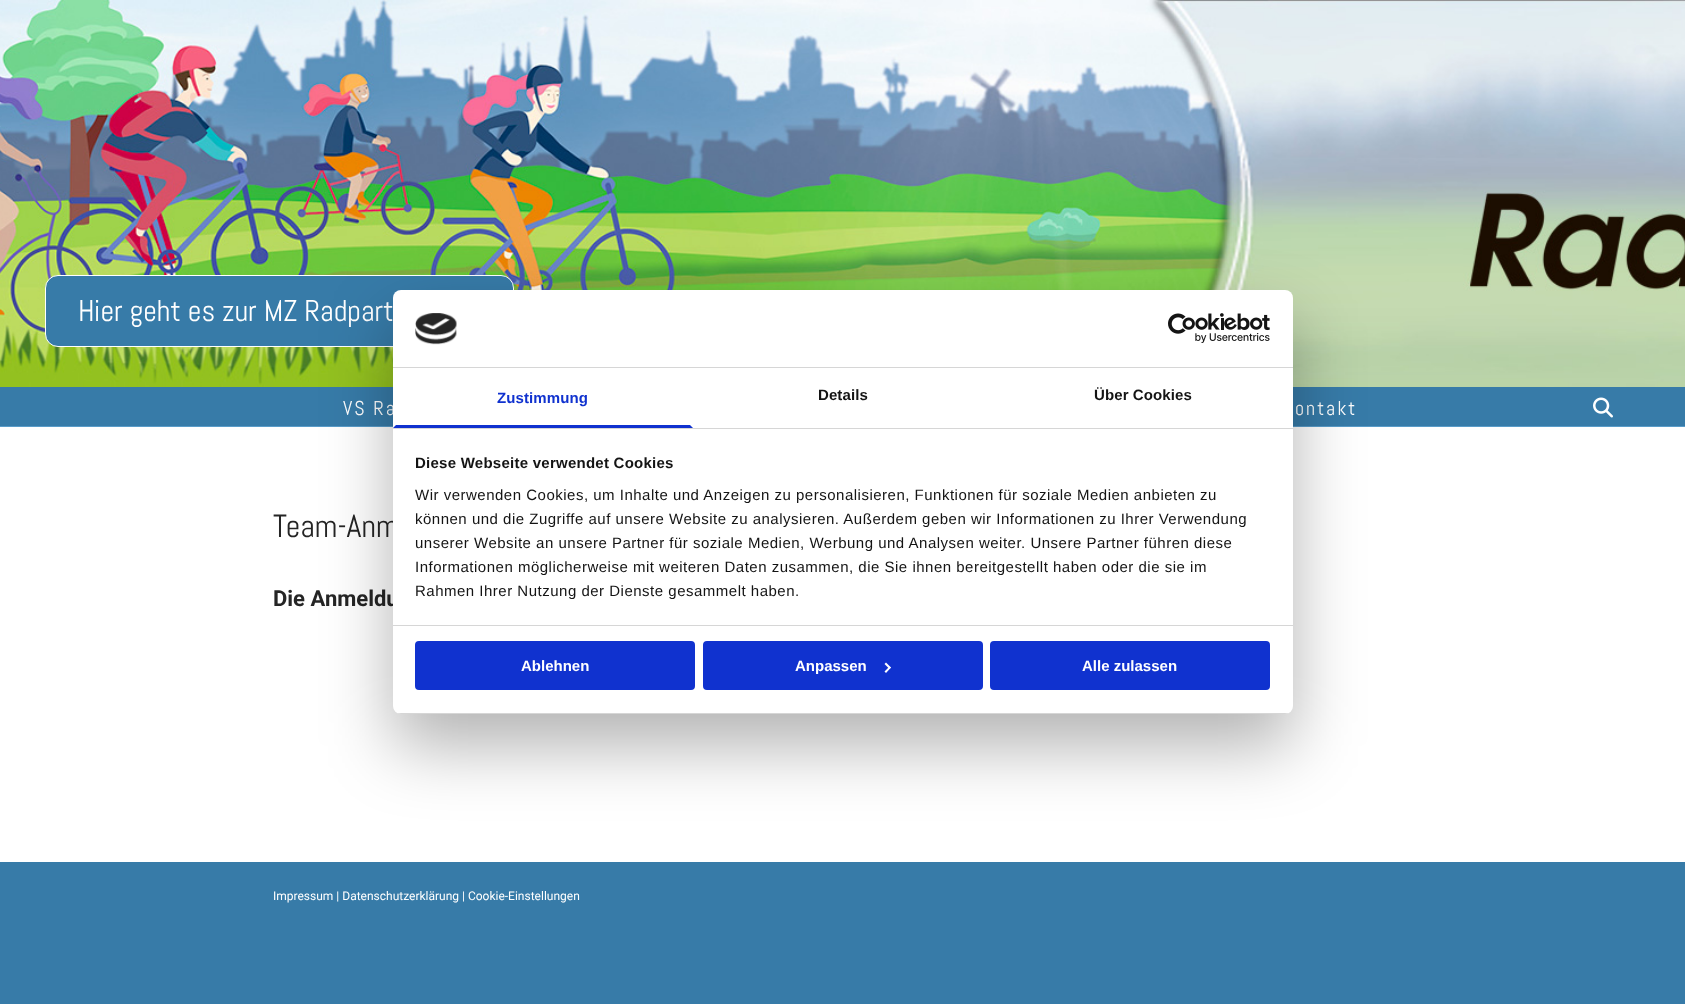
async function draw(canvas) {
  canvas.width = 1685;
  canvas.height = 1004;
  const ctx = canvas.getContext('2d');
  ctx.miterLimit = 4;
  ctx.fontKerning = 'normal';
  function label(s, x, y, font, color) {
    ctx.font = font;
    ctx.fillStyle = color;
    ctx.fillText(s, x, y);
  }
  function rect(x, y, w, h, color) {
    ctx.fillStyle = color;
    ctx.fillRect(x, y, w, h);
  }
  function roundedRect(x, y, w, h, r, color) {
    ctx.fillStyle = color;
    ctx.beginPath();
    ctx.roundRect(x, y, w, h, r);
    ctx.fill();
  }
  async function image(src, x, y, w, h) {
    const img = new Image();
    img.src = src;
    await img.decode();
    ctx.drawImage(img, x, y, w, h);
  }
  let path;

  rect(0, 0, 1685, 1004, '#fff');
  await image('assets/img1.png', 0, 0, 1685, 387);
  ctx.fillStyle = '#377ba8';
  ctx.beginPath();
  ctx.roundRect(45.5, 275.5, 468, 71, 12.5);
  ctx.fill();
  ctx.strokeStyle = '#fff';
  ctx.stroke();
  label('Hier geht es zur MZ Radpart', 78, 321, '30px Abel', '#fff');
  rect(0, 387, 1685, 39, '#377ba8');
  rect(0, 426, 1685, 1, '#599cc9');
  ctx.letterSpacing = '2px';
  label('VS Ra', 343, 415, '20px Abel', '#fff');
  label('ontakt', 1295, 415, '20px Abel', '#fff');
  await image('assets/img2.png', 1593, 397, 20, 21);
  ctx.letterSpacing = '0px';
  label('Team-Anm', 273, 537, '32px Abel', '#252525');
  label('Die Anmeldu', 273, 606, 'bold 22px Roboto', '#252525');
  rect(0, 862, 1685, 142, '#377ba8');
  label('Impressum | Datenschutzerklärung | Cookie-Einstellungen', 273, 900, '12px Roboto', '#fff');
  ctx.fillStyle = '#0000004d';
  ctx.filter = 'blur(34px)';
  ctx.beginPath();
  ctx.roundRect(393, 322, 900, 424, 8);
  ctx.fill();
  ctx.filter = 'none';
  roundedRect(393, 290, 900, 424, 8, '#fff');
  rect(393, 367, 900, 1, '#d6d6d6');
  await image('assets/img3.png', 415, 313, 42, 32);
  await image('assets/img4.png', 1168, 313, 102, 30);
  rect(393, 428, 900, 1, '#d6d6d6');
  ctx.fillStyle = '#1032cf';
  path = new Path2D('M693 428H393L396 425H690Z');
  ctx.fill(path);
  ctx.letterSpacing = '0.1px';
  label('Zustimmung', 497, 403, 'bold 15px Liberation Sans', '#1032cf');
  label('Details', 818, 400, 'bold 15px Liberation Sans', '#141414');
  label('Über Cookies', 1094, 400, 'bold 15px Liberation Sans', '#141414');
  rect(393, 625, 900, 1, '#d6d6d6');
  ctx.letterSpacing = '0.25px';
  label('Diese Webseite verwendet Cookies', 415, 468, 'bold 15px Liberation Sans', '#141414');
  ctx.letterSpacing = '0.5px';
  label('Wir verwenden Cookies, um Inhalte und Anzeigen zu personalisieren, Funktionen für soziale Medien anbieten zu', 415, 500, '15px Liberation Sans', '#141414');
  label('können und die Zugriffe auf unsere Website zu analysieren. Außerdem geben wir Informationen zu Ihrer Verwendung', 415, 524, '15px Liberation Sans', '#141414');
  label('unserer Website an unsere Partner für soziale Medien, Werbung und Analysen weiter. Unsere Partner führen diese', 415, 548, '15px Liberation Sans', '#141414');
  label('Informationen möglicherweise mit weiteren Daten zusammen, die Sie ihnen bereitgestellt haben oder die sie im', 415, 572, '15px Liberation Sans', '#141414');
  label('Rahmen Ihrer Nutzung der Dienste gesammelt haben.', 415, 596, '15px Liberation Sans', '#141414');
  ctx.save();
  ctx.beginPath();
  ctx.roundRect(393, 290, 900, 424, 8);
  ctx.clip();
  rect(393, 713, 900, 1, '#d6d6d6');
  ctx.restore();
  ctx.fillStyle = '#1032cf';
  ctx.beginPath();
  ctx.roundRect(416, 642, 278, 47, 3);
  ctx.fill();
  ctx.strokeStyle = '#1032cf';
  ctx.lineWidth = 2;
  ctx.stroke();
  ctx.letterSpacing = '0px';
  label('Ablehnen', 521, 671, 'bold 15px Liberation Sans', '#fff');
  ctx.fillStyle = '#1032cf';
  ctx.beginPath();
  ctx.roundRect(704, 642, 278, 47, 3);
  ctx.fill();
  ctx.stroke();
  label('Anpassen', 795, 671, 'bold 15px Liberation Sans', '#fff');
  path = new Path2D('M886 662.5L891 667.5L889.5 669L884.5 664Z');
  ctx.fill(path);
  path = new Path2D('M889.5 666.5L891 667.5L886 673L884.5 671.5Z');
  ctx.fill(path);
  ctx.fillStyle = '#1032cf';
  ctx.beginPath();
  ctx.roundRect(991, 642, 278, 47, 3);
  ctx.fill();
  ctx.stroke();
  label('Alle zulassen', 1082, 671, 'bold 15px Liberation Sans', '#fff');
}

draw(document.querySelector('canvas'));
